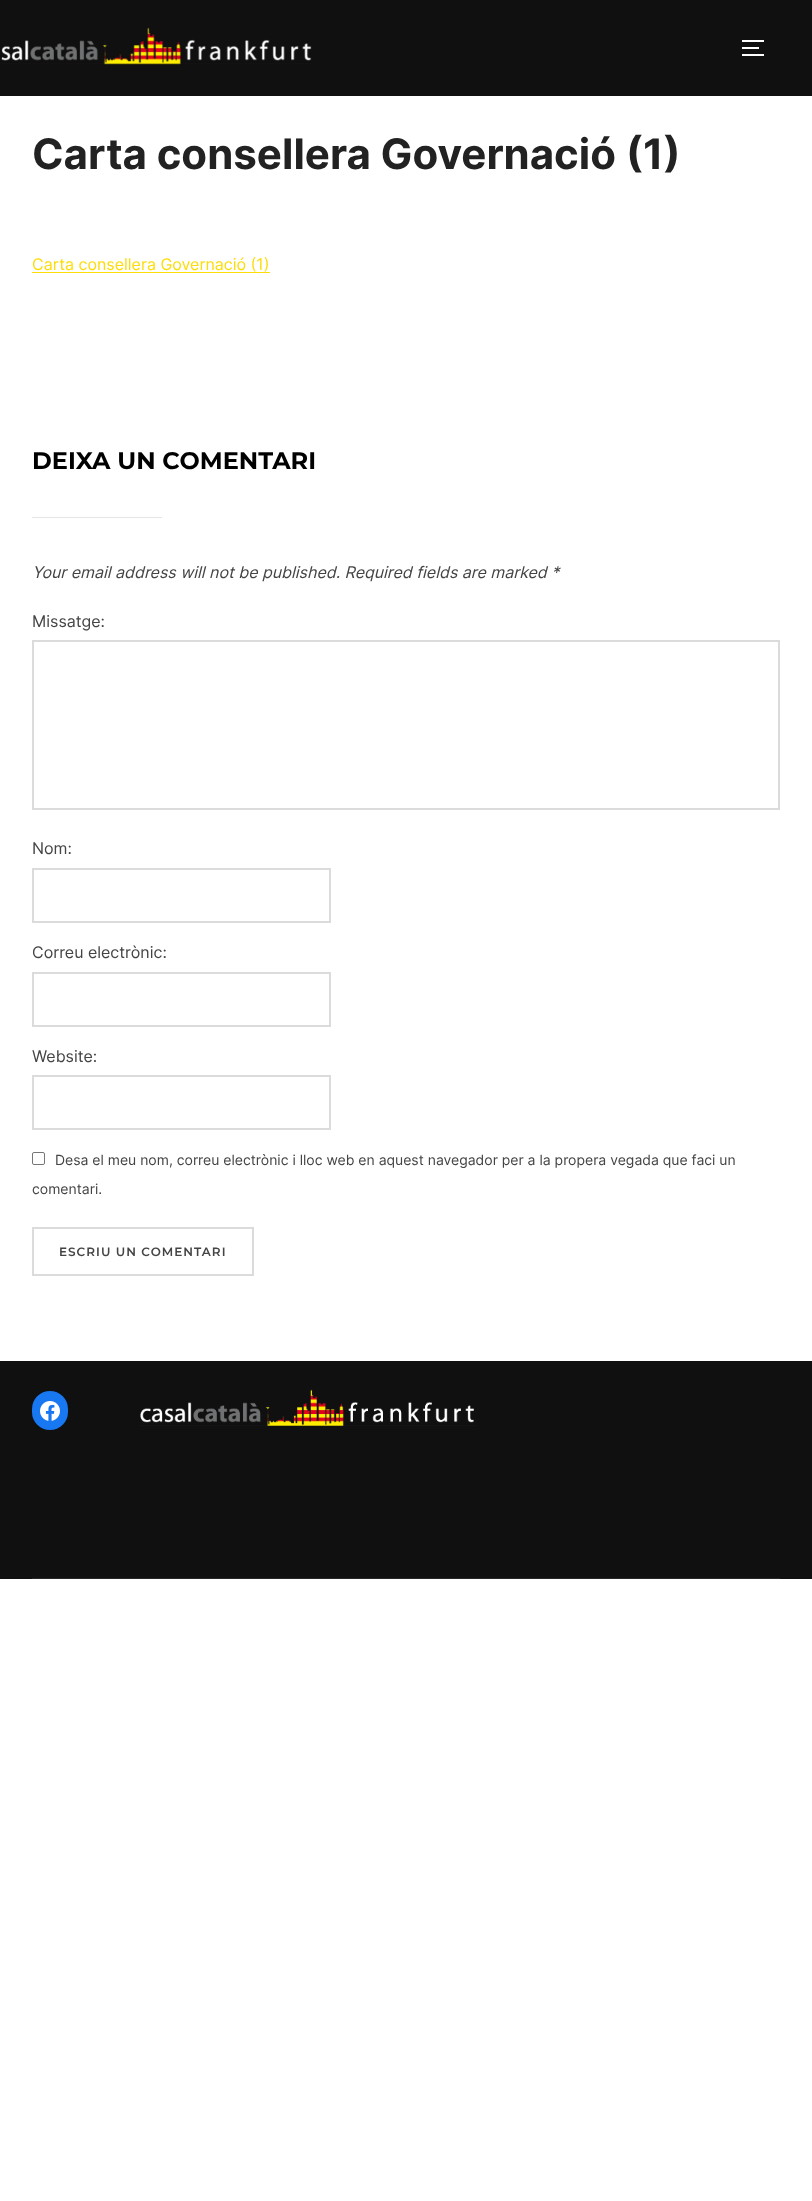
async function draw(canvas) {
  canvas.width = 812;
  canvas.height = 2201;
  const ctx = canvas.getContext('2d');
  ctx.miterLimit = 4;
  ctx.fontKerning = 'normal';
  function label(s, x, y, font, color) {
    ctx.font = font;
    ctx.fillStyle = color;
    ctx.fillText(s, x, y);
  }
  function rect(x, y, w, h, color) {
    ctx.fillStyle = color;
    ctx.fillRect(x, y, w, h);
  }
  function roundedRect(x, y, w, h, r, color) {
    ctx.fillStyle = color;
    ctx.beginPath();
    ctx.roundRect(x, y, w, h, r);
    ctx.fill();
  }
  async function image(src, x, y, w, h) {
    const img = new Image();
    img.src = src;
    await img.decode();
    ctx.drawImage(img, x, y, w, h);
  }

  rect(0, 0, 812, 2201, '#fff');
  rect(0, 0, 812, 96, '#101010');
  await image('assets/img1.png', 0, 27, 312, 38);
  rect(742, 40, 22, 2, '#fff');
  rect(742, 47, 17, 2, '#fff');
  rect(742, 54, 22, 2, '#fff');
  label('Carta consellera Governació (1)', 32, 169, 'bold 42px Inter', '#222');
  label('Carta consellera Governació (1)', 32, 270, '16px Inter', '#fcdd09');
  rect(32, 272, 238, 1, '#fcdd09');
  label('DEIXA UN COMENTARI', 32, 469, 'bold 24px Montserrat', '#000');
  rect(32, 517, 130, 1, '#e6e6e6');
  label('Your email address will not be published. Required fields are marked *', 32, 578, 'italic 16px Inter', '#444');
  label('Missatge:', 32, 627, '16px Inter', '#444');
  ctx.strokeStyle = '#dbdbdb';
  ctx.lineWidth = 2;
  ctx.strokeRect(33, 641, 746, 168);
  label('Nom:', 32, 854, '16px Inter', '#444');
  ctx.strokeRect(33, 869, 297, 53);
  label('Correu electrònic:', 32, 958, '16px Inter', '#444');
  ctx.strokeRect(33, 973, 297, 53);
  label('Website:', 32, 1062, '16px Inter', '#444');
  ctx.strokeRect(33, 1076, 297, 53);
  ctx.beginPath();
  ctx.roundRect(32.5, 1152.5, 12, 12, 1.5);
  ctx.strokeStyle = '#767676';
  ctx.lineWidth = 1;
  ctx.stroke();
  label('Desa el meu nom, correu electrònic i lloc web en aquest navegador per a la propera vegada que faci un', 55, 1165, '14px Inter', '#444');
  label('comentari.', 32, 1194, '14px Inter', '#444');
  ctx.strokeStyle = '#dbdbdb';
  ctx.lineWidth = 2;
  ctx.strokeRect(33, 1228, 220, 47);
  ctx.letterSpacing = '1px';
  label('ESCRIU UN COMENTARI', 59, 1256, '600 12px Montserrat', '#444');
  rect(0, 1361, 812, 218, '#101010');
  roundedRect(32, 1391, 36, 39, 18, '#1778f2');
  await image('assets/img2.png', 40, 1401, 20, 20);
  await image('assets/img3.png', 140, 1389, 336, 37);
  rect(32, 1578, 748, 1, '#282828');
}

draw(document.querySelector('canvas'));
